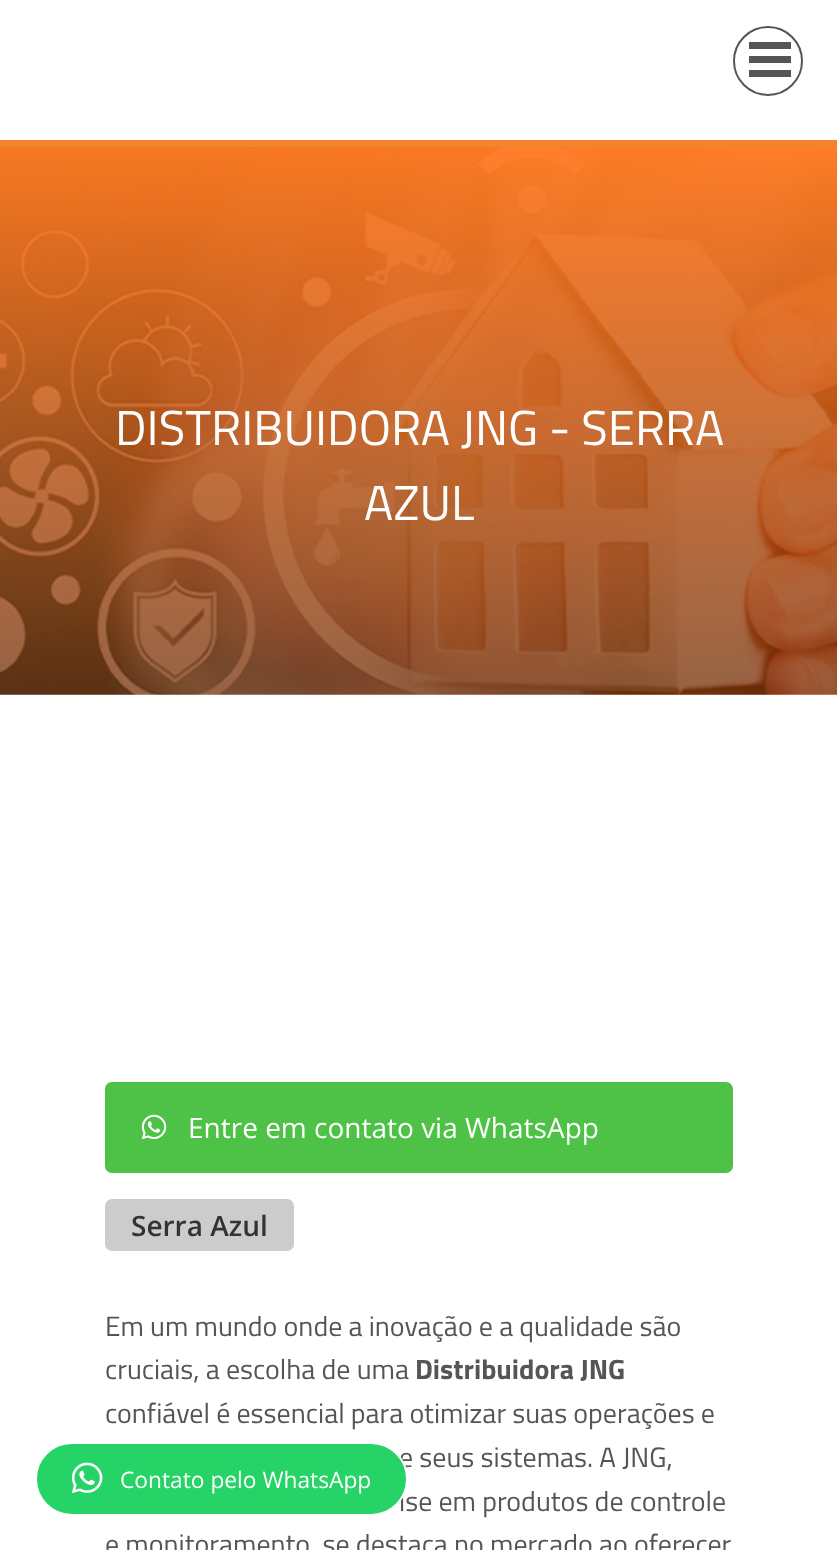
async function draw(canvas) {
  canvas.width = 837;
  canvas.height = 1550;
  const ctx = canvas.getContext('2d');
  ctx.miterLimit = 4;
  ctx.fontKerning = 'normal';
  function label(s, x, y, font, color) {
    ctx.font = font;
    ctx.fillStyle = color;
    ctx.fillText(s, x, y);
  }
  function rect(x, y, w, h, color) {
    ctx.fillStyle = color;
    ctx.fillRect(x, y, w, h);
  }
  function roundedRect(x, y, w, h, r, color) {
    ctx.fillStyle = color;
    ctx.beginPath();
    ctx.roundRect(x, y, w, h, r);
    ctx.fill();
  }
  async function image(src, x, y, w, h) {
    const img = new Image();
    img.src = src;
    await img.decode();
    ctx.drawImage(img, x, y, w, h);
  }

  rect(0, 0, 837, 1550, '#fff');
  rect(0, 140, 837, 7, '#f38231');
  ctx.beginPath();
  ctx.arc(768, 61, 34, 0, 2 * Math.PI);
  ctx.strokeStyle = '#555';
  ctx.lineWidth = 2;
  ctx.stroke();
  rect(749, 42, 42, 7, '#555');
  rect(749, 56, 42, 7, '#555');
  rect(749, 70, 42, 7, '#555');
  await image('assets/img1.png', 0, 147, 837, 548);
  label('DISTRIBUIDORA JNG - SERRA', 115, 445, '49px Titillium Web', '#fff');
  label('AZUL', 364, 520, '49px Titillium Web', '#fff');
  ctx.fillStyle = '#4dc247';
  ctx.beginPath();
  ctx.roundRect(106, 1083, 626, 89, 6);
  ctx.fill();
  ctx.strokeStyle = '#4dc247';
  ctx.stroke();
  await image('assets/img2.png', 141, 1114, 26, 26);
  label('Entre em contato via WhatsApp', 188, 1138, '28px Open Sans', '#fff');
  roundedRect(105, 1199, 189, 52, 7, '#ccc');
  label('Serra Azul', 131, 1236, '600 28px Open Sans', '#333');
  label('Em um mundo onde a inovação e a qualidade são', 105, 1336, '28px Titillium Web', '#555');
  label('cruciais, a escolha de uma', 105, 1379, '28px Titillium Web', '#555');
  label('Distribuidora JNG', 415, 1379, 'bold 28px Titillium Web', '#555');
  label('confiável é essencial para otimizar suas operações e', 105, 1423, '28px Titillium Web', '#555');
  label('e seus sistemas. A JNG,', 399, 1467, '28px Titillium Web', '#555');
  label('ise em produtos de controle', 399, 1511, '28px Titillium Web', '#555');
  label('e monitoramento, se destaca no mercado ao oferecer', 105, 1554, '28px Titillium Web', '#555');
  ctx.fillStyle = '#25d366';
  ctx.beginPath();
  ctx.roundRect(36, 1443, 371, 72, 36);
  ctx.fill();
  ctx.strokeStyle = '#fff';
  ctx.stroke();
  await image('assets/img3.png', 71, 1462, 32, 32);
  label('Contato pelo WhatsApp', 120, 1488, '22.75px Open Sans', '#fff');
}

draw(document.querySelector('canvas'));
